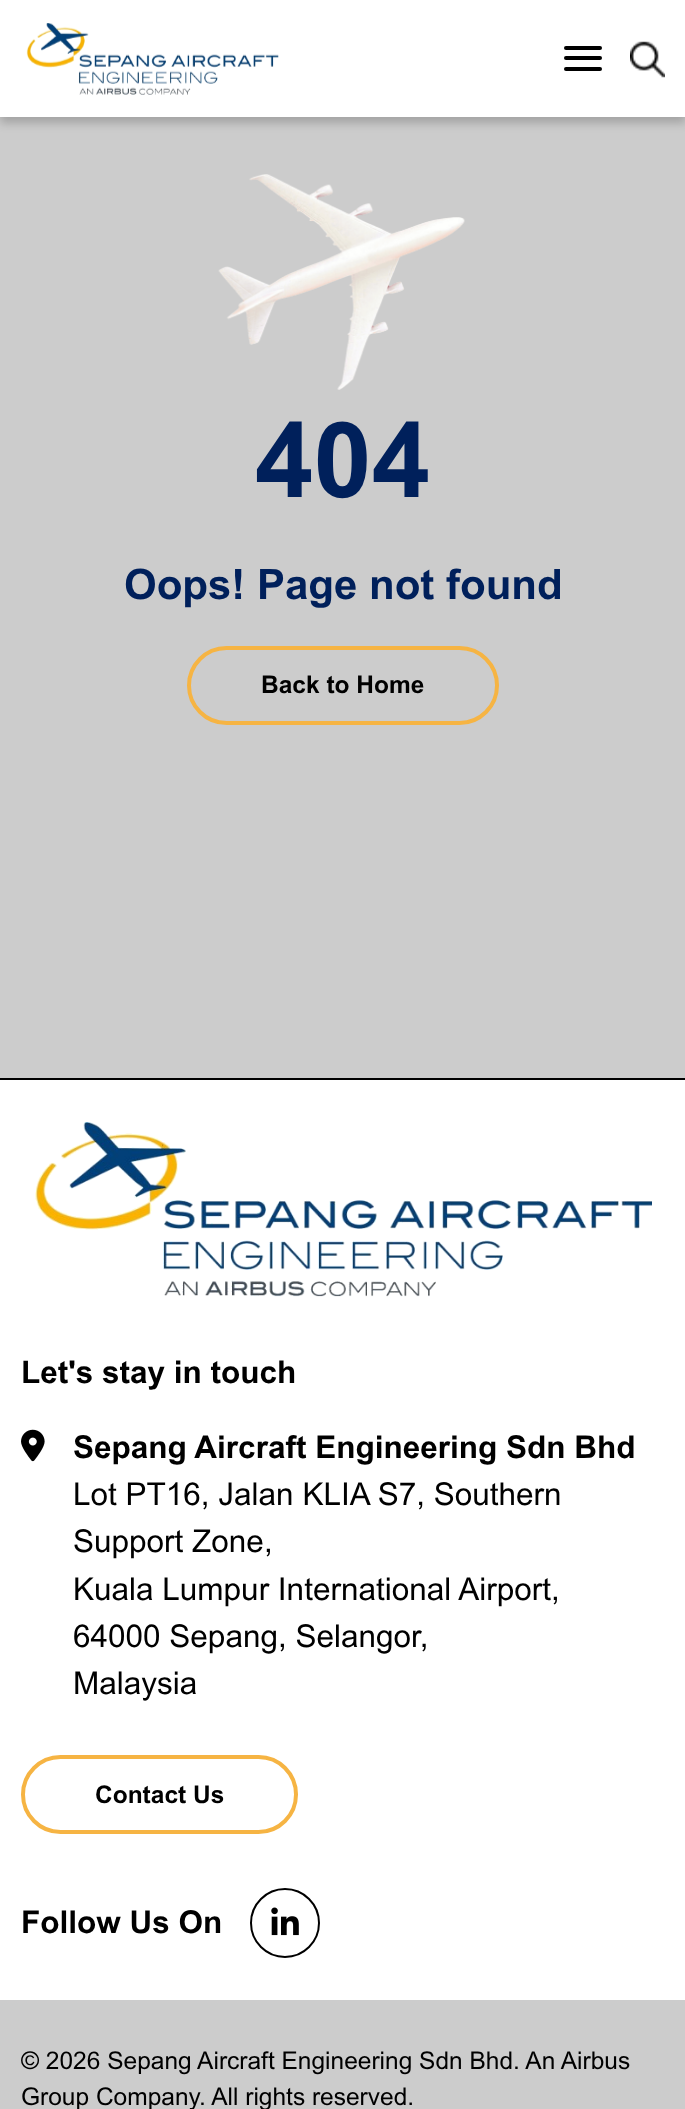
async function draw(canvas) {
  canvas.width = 685;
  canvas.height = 2109;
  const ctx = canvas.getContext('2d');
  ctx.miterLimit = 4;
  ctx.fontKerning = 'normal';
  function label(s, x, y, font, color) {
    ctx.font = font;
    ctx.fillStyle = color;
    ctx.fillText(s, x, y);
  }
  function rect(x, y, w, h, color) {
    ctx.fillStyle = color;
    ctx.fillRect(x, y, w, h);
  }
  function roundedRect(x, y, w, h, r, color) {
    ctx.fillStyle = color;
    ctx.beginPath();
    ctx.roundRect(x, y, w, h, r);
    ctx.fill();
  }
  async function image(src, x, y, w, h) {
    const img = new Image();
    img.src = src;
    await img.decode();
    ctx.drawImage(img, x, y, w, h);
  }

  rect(0, 0, 685, 2109, '#fff');
  rect(0, 117, 685, 961, '#ccc');
  ctx.fillStyle = '#00000033';
  ctx.filter = 'blur(5px)';
  ctx.beginPath();
  ctx.rect(0, 5, 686, 118);
  ctx.fill();
  ctx.filter = 'none';
  rect(0, 0, 685, 117, '#fff');
  await image('assets/img1.png', 26, 23, 253, 72);
  roundedRect(564, 46, 38, 4, 2, '#000');
  roundedRect(564, 56, 38, 4, 2, '#000');
  roundedRect(564, 67, 38, 4, 2, '#000');
  await image('assets/img2.png', 630, 41, 35, 37);
  await image('assets/img3.png', 218, 174, 247, 216);
  label('404', 255, 497, 'bold 105px Arial', '#00205b');
  label('Oops! Page not found', 124, 599, 'bold 42px Arial', '#00205b');
  ctx.beginPath();
  ctx.roundRect(189, 648, 308, 75, 37.5);
  ctx.strokeStyle = '#f6b443';
  ctx.lineWidth = 4;
  ctx.stroke();
  label('Back to Home', 261, 693, 'bold 24.5px Arial', '#000');
  rect(0, 1078, 685, 2, '#000');
  await image('assets/img4.png', 35, 1122, 617, 175);
  label('Let\'s stay in touch', 21, 1383, 'bold 31.5px Arial', '#000');
  await image('assets/img5.png', 21, 1429, 24, 33);
  label('Sepang Aircraft Engineering Sdn Bhd', 73, 1458, 'bold 31.5px Arial', '#000');
  label('Lot PT16, Jalan KLIA S7, Southern', 73, 1505, '31.5px Arial', '#000');
  label('Support Zone,', 73, 1552, '31.5px Arial', '#000');
  label('Kuala Lumpur International Airport,', 73, 1600, '31.5px Arial', '#000');
  label('64000 Sepang, Selangor,', 73, 1647, '31.5px Arial', '#000');
  label('Malaysia', 73, 1694, '31.5px Arial', '#000');
  ctx.beginPath();
  ctx.roundRect(23, 1757, 273, 75, 37.5);
  ctx.stroke();
  label('Contact Us', 95, 1803, 'bold 24.5px Arial', '#000');
  label('Follow Us On', 21, 1933, 'bold 31.5px Arial', '#000');
  ctx.beginPath();
  ctx.arc(285, 1923, 34, 0, 2 * Math.PI);
  ctx.strokeStyle = '#000';
  ctx.lineWidth = 2;
  ctx.stroke();
  await image('assets/img6.png', 271, 1907, 28, 29);
  rect(0, 2000, 685, 109, '#ccc');
  label('© 2026 Sepang Aircraft Engineering Sdn Bhd. An Airbus', 21, 2069, '24.5px Arial', '#000');
  label('Group Company. All rights reserved.', 21, 2105, '24.5px Arial', '#000');
}

draw(document.querySelector('canvas'));
